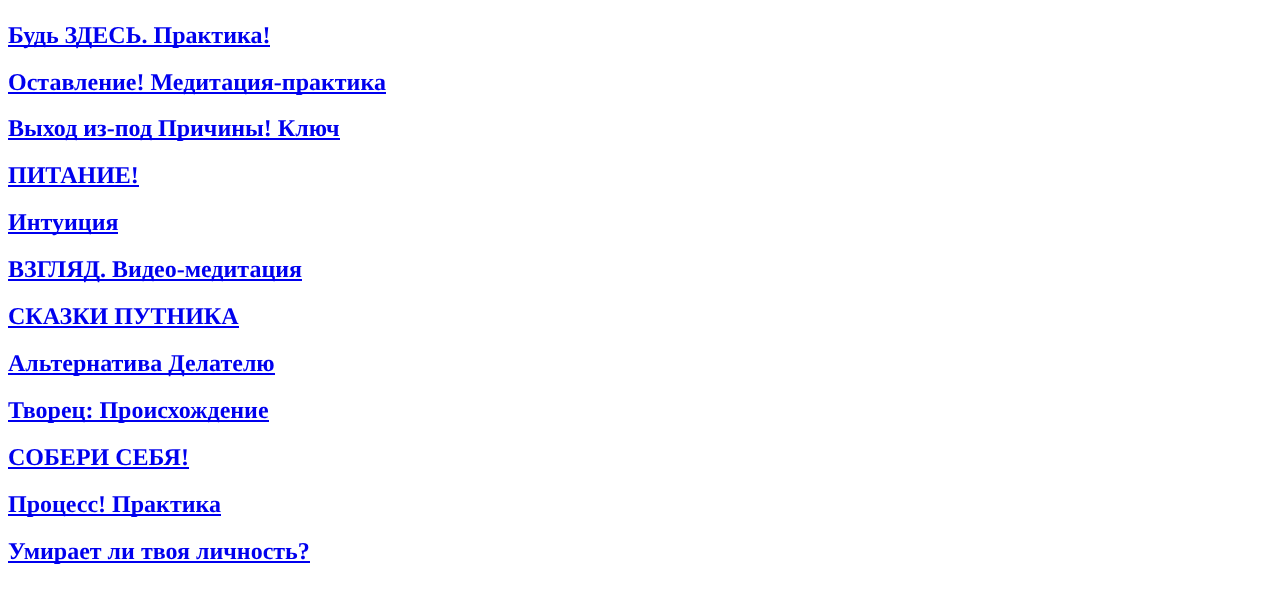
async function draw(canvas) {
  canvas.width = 1281;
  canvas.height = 600;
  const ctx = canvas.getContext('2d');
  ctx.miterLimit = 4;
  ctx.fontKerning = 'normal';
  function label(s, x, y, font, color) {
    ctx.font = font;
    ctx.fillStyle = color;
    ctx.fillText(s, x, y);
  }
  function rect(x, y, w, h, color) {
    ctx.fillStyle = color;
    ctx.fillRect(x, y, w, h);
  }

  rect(0, 0, 1281, 600, '#fff');
  rect(8, 45, 262, 2, '#00e');
  label('Будь ЗДЕСЬ. Практика!', 8, 43, 'bold 24px Liberation Serif', '#00e');
  rect(8, 92, 378, 2, '#00e');
  label('Оставление! Медитация-практика', 8, 90, 'bold 24px Liberation Serif', '#00e');
  rect(8, 138, 332, 2, '#00e');
  label('Выход из-под Причины! Ключ', 8, 136, 'bold 24px Liberation Serif', '#00e');
  label('ПИТАНИЕ!', 8, 183, 'bold 24px Liberation Serif', '#00e');
  rect(8, 185, 131, 2, '#00e');
  rect(8, 232, 110, 2, '#00e');
  label('Интуиция', 8, 230, 'bold 24px Liberation Serif', '#00e');
  rect(8, 279, 294, 2, '#00e');
  label('ВЗГЛЯД. Видео-медитация', 8, 277, 'bold 24px Liberation Serif', '#00e');
  label('СКАЗКИ ПУТНИКА', 8, 324, 'bold 24px Liberation Serif', '#00e');
  rect(8, 326, 231, 2, '#00e');
  rect(8, 373, 267, 2, '#00e');
  label('Альтернатива Делателю', 8, 371, 'bold 24px Liberation Serif', '#00e');
  rect(8, 420, 261, 2, '#00e');
  label('Творец: Происхождение', 8, 418, 'bold 24px Liberation Serif', '#00e');
  label('СОБЕРИ СЕБЯ!', 8, 465, 'bold 24px Liberation Serif', '#00e');
  rect(8, 467, 181, 2, '#00e');
  rect(8, 514, 213, 2, '#00e');
  label('Процесс! Практика', 8, 512, 'bold 24px Liberation Serif', '#00e');
  rect(8, 561, 302, 2, '#00e');
  label('Умирает ли твоя личность?', 8, 559, 'bold 24px Liberation Serif', '#00e');
}

draw(document.querySelector('canvas'));
